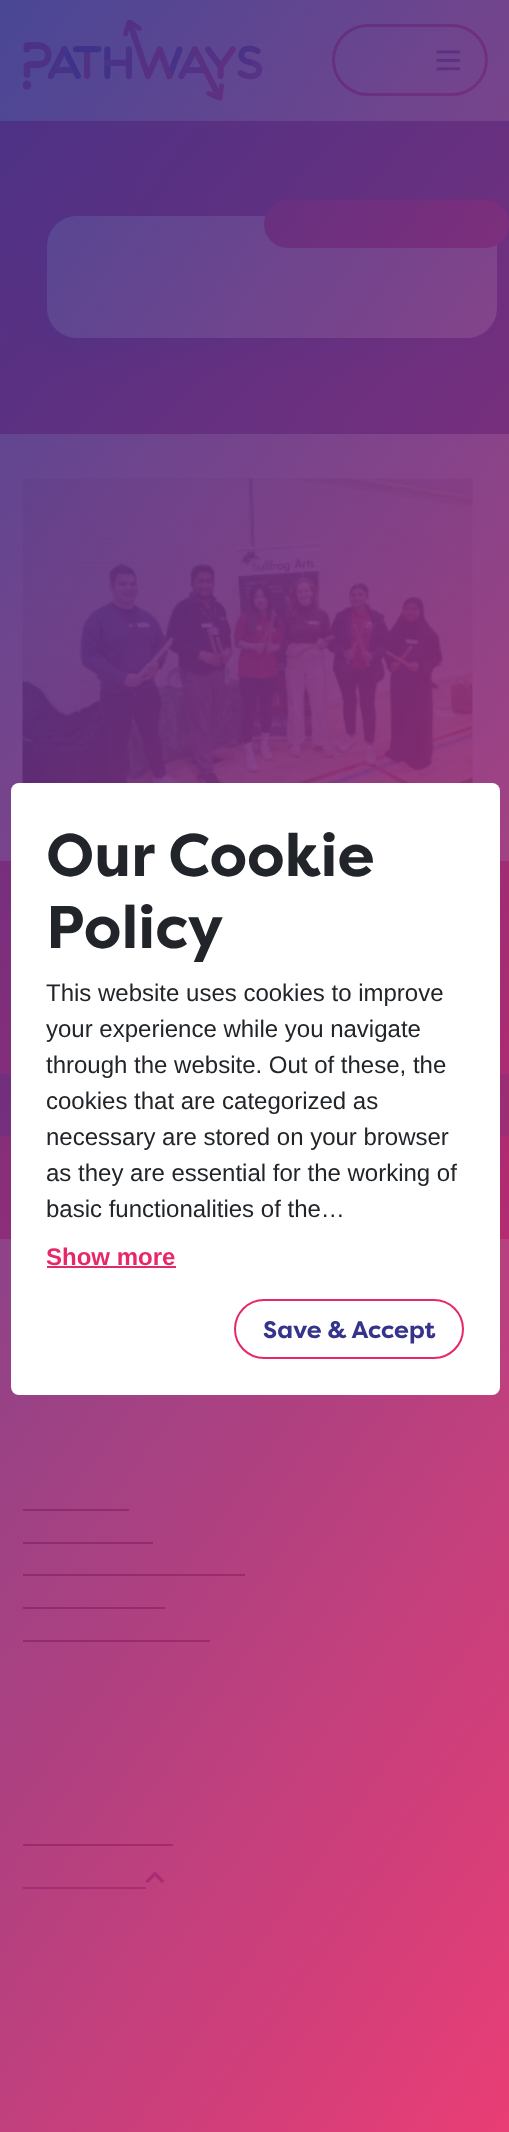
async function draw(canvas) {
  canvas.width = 509;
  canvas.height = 2132;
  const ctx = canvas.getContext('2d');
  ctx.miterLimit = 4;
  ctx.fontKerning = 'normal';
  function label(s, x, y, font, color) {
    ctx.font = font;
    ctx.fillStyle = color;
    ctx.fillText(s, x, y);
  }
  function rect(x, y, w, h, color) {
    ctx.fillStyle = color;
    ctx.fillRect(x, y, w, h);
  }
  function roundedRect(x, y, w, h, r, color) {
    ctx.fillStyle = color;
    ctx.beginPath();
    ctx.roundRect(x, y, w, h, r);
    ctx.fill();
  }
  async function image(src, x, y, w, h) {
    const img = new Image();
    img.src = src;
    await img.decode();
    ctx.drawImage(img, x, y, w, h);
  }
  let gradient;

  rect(0, 0, 509, 2132, '#fff');
  rect(0, 119, 509, 2, '#f5f3ef');
  await image('assets/img1.png', 23, 20, 240, 81);
  ctx.beginPath();
  ctx.roundRect(333.5, 25.5, 153, 69, 34.5);
  ctx.strokeStyle = '#e72866';
  ctx.lineWidth = 3;
  ctx.stroke();
  await image('assets/img2.png', 436, 50, 25, 21);
  gradient = ctx.createLinearGradient(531, 377, -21, 176);
  gradient.addColorStop(0, '#35338a');
  gradient.addColorStop(1, '#e72866');
  ctx.fillStyle = gradient;
  ctx.fillRect(0, 121, 509, 313);
  ctx.fillStyle = '#35338a80';
  ctx.filter = 'blur(15px)';
  ctx.beginPath();
  ctx.roundRect(47, 231, 450, 122, 30);
  ctx.fill();
  ctx.filter = 'none';
  roundedRect(47, 216, 450, 122, 30, '#fff');
  roundedRect(264, 200, 245, 48, 24, '#e72866');
  await image('assets/img3.png', 22, 478, 451, 305);
  rect(0, 861, 509, 378, '#e72866');
  rect(0, 1074, 11, 62, '#35338a');
  rect(500, 1074, 9, 62, '#35338a');
  rect(23, 1509, 106, 2, '#212529');
  rect(23, 1542, 130, 2, '#212529');
  rect(23, 1574, 222, 2, '#212529');
  rect(23, 1607, 142, 2, '#212529');
  rect(23, 1640, 187, 2, '#212529');
  rect(23, 1844, 150, 2, '#212529');
  await image('assets/img4.png', 145, 1871, 20, 12);
  rect(23, 1887, 123, 2, '#35338a');
  gradient = ctx.createLinearGradient(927, 1537, -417, 596);
  gradient.addColorStop(0, '#e72866e6');
  gradient.addColorStop(1, '#35338ae6');
  ctx.fillStyle = gradient;
  ctx.fillRect(0, 0, 509, 2132);
  roundedRect(11, 783, 489, 612, 8, '#fff');
  label('Our Cookie', 46, 876, 'bold 60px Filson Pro', '#212529');
  label('Policy', 46, 948, 'bold 60px Filson Pro', '#212529');
  label('This website uses cookies to improve', 46, 1001, '24px Liberation Sans', '#212529');
  label('your experience while you navigate', 46, 1037, '24px Liberation Sans', '#212529');
  label('through the website. Out of these, the', 46, 1073, '24px Liberation Sans', '#212529');
  label('cookies that are categorized as', 46, 1109, '24px Liberation Sans', '#212529');
  label('necessary are stored on your browser', 46, 1145, '24px Liberation Sans', '#212529');
  label('as they are essential for the working of', 46, 1181, '24px Liberation Sans', '#212529');
  label('basic functionalities of the…', 46, 1217, '24px Liberation Sans', '#212529');
  label('Show more', 46, 1265, 'bold 24px Liberation Sans', '#e72866');
  rect(47, 1266, 129, 2, '#e72866');
  ctx.beginPath();
  ctx.roundRect(235, 1300, 228, 58, 29);
  ctx.lineWidth = 2;
  ctx.stroke();
  label('Save & Accept', 263, 1338, 'bold 24px Filson Pro', '#35338a');
}

draw(document.querySelector('canvas'));
